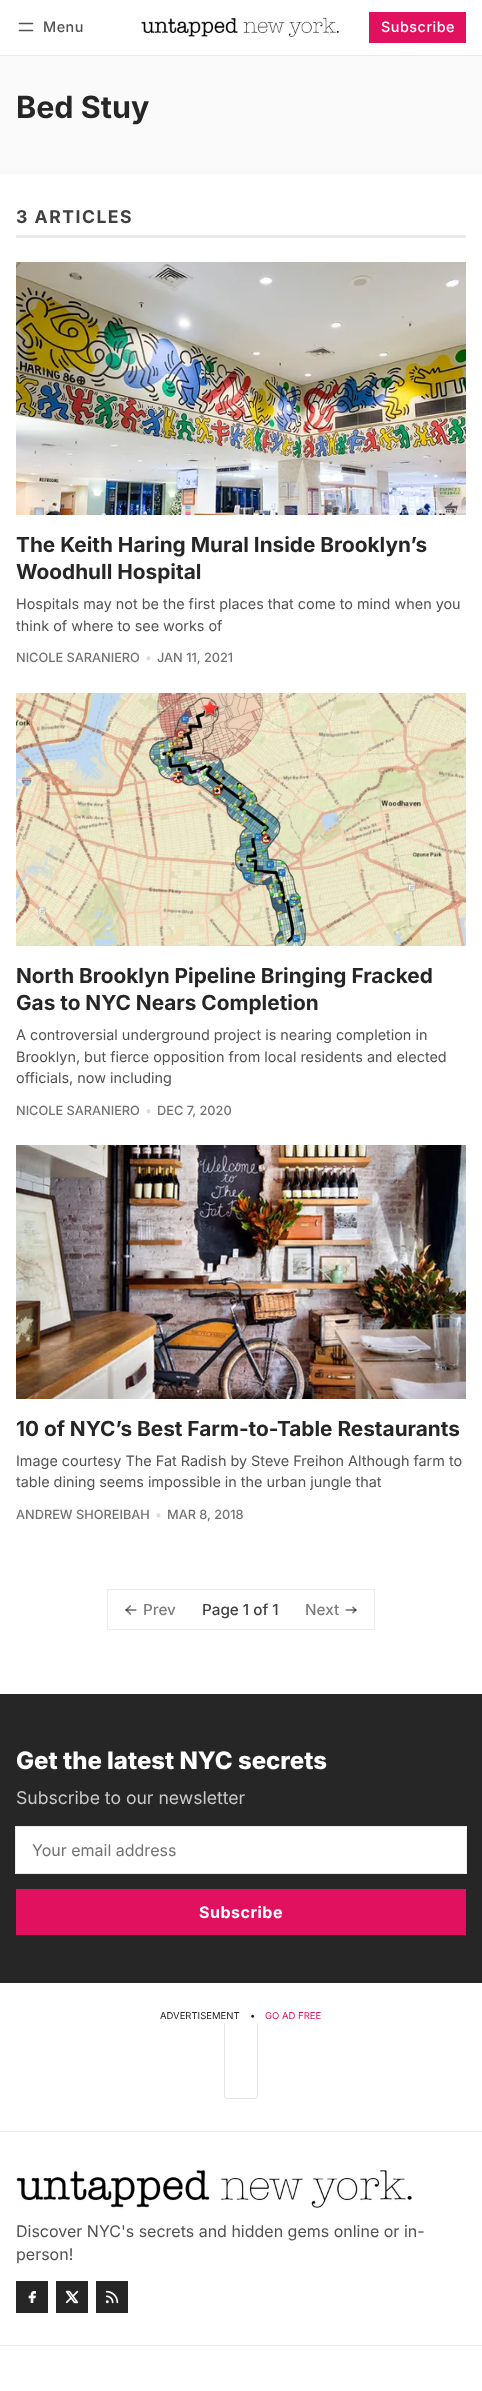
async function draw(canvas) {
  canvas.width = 482;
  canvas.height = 2391;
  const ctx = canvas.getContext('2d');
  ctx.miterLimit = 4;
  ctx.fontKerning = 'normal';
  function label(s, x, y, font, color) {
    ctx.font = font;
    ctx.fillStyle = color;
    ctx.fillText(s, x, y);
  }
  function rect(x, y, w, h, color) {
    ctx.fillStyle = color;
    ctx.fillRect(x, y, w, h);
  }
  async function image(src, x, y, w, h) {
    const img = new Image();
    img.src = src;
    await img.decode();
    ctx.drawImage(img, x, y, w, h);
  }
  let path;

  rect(0, 0, 482, 2391, '#fff');
  rect(0, 55, 482, 1, '#ebebeb');
  path = new Path2D('M19.5 23.5H32.5M19.5 30.5H32.5');
  ctx.strokeStyle = '#515151';
  ctx.lineWidth = 1.7;
  ctx.lineCap = 'round';
  ctx.lineJoin = 'round';
  ctx.stroke(path);
  ctx.letterSpacing = '0.5px';
  label('Menu', 43, 32, '500 14.4px Inter', '#515151');
  await image('assets/img1.png', 141, 17, 198, 20);
  rect(369, 12, 97, 31, '#e1115f');
  label('Subscribe', 381, 32, '500 14.4px Inter', '#fff');
  rect(0, 56, 482, 118, '#fafafa');
  ctx.letterSpacing = '0px';
  label('Bed Stuy', 16, 118, 'bold 30.5px Inter', '#262626');
  rect(16, 235, 450, 3, '#ebebeb');
  ctx.letterSpacing = '1.5px';
  label('3 ARTICLES', 16, 223, 'bold 17.6px Inter', '#404040');
  await image('assets/img2.png', 16, 262, 450, 253);
  ctx.letterSpacing = '0px';
  label('The Keith Haring Mural Inside Brooklyn’s', 16, 552, 'bold 20.8px Inter', '#262626');
  label('Woodhull Hospital', 16, 579, 'bold 20.8px Inter', '#262626');
  label('Hospitals may not be the first places that come to mind when you', 16, 609, '14.4px Inter', '#515151');
  label('think of where to see works of', 16, 631, '14.4px Inter', '#515151');
  label('NICOLE SARANIERO', 16, 662, '500 12.75px Inter', '#727272');
  label('•', 145, 662, '500 12.75px Inter', '#dcdcdc');
  label('JAN 11, 2021', 157, 662, '500 12.75px Inter', '#727272');
  await image('assets/img3.png', 16, 693, 450, 253);
  label('North Brooklyn Pipeline Bringing Fracked', 16, 983, 'bold 20.8px Inter', '#262626');
  label('Gas to NYC Nears Completion', 16, 1010, 'bold 20.8px Inter', '#262626');
  label('A controversial underground project is nearing completion in', 16, 1040, '14.4px Inter', '#515151');
  label('Brooklyn, but fierce opposition from local residents and elected', 16, 1062, '14.4px Inter', '#515151');
  label('officials, now including', 16, 1083, '14.4px Inter', '#515151');
  label('NICOLE SARANIERO', 16, 1115, '500 12.75px Inter', '#727272');
  label('•', 145, 1115, '500 12.75px Inter', '#dcdcdc');
  label('DEC 7, 2020', 157, 1115, '500 12.75px Inter', '#727272');
  await image('assets/img4.png', 16, 1145, 450, 254);
  label('10 of NYC’s Best Farm-to-Table Restaurants', 16, 1436, 'bold 20.8px Inter', '#262626');
  label('Image courtesy The Fat Radish by Steve Freihon Although farm to', 16, 1466, '14.4px Inter', '#515151');
  label('table dining seems impossible in the urban jungle that', 16, 1487, '14.4px Inter', '#515151');
  label('ANDREW SHOREIBAH', 16, 1519, '500 12.75px Inter', '#727272');
  label('•', 155, 1519, '500 12.75px Inter', '#dcdcdc');
  label('MAR 8, 2018', 167, 1519, '500 12.75px Inter', '#727272');
  ctx.strokeStyle = '#ebebeb';
  ctx.lineWidth = 1;
  ctx.lineJoin = 'miter';
  ctx.strokeRect(107.5, 1589.5, 267, 40);
  await image('assets/img5.png', 125, 1605, 12, 10);
  label('Prev', 143, 1615, '500 15.25px Inter', '#7d7d7d');
  label('Page 1 of 1', 202, 1615, '500 15.25px Inter', '#404040');
  label('Next', 305, 1615, '500 15.25px Inter', '#7d7d7d');
  await image('assets/img6.png', 345, 1606, 12, 8);
  rect(0, 1694, 482, 289, '#262626');
  label('Get the latest NYC secrets', 16, 1769, '800 24px Inter', '#fff');
  label('Subscribe to our newsletter', 16, 1804, '17.6px Inter', '#c9c9c9');
  ctx.strokeRect(15.5, 1826.5, 451, 47);
  rect(16, 1827, 450, 46, '#fff');
  label('Your email address', 32, 1856, '16px Inter', '#727272');
  rect(16, 1889, 450, 46, '#e1115f');
  ctx.letterSpacing = '0.5px';
  label('Subscribe', 199, 1918, 'bold 16px Inter', '#fff');
  ctx.beginPath();
  ctx.roundRect(224.5, 2015.5, 33, 83, 2.5);
  ctx.strokeStyle = '#e5e5e5';
  ctx.stroke();
  rect(224, 2015, 34, 8, '#fff');
  ctx.letterSpacing = '0px';
  label('ADVERTISEMENT', 160, 2019, '9.5px Inter', '#262626');
  label('•', 250, 2019, '9.5px Inter', '#262626');
  label('GO AD FREE', 265, 2019, '9.5px Inter', '#e1115f');
  rect(0, 2131, 482, 1, '#ebebeb');
  rect(0, 2345, 482, 1, '#ebebeb');
  await image('assets/img7.png', 16, 2169, 397, 40);
  label('Discover NYC\'s secrets and hidden gems online or in-', 16, 2237, '16px Inter', '#515151');
  label('person!', 16, 2260, '16px Inter', '#515151');
  rect(16, 2281, 32, 32, '#262626');
  await image('assets/img8.png', 28, 2291, 8, 12);
  rect(56, 2281, 32, 32, '#262626');
  await image('assets/img9.png', 65, 2290, 14, 14);
  rect(96, 2281, 32, 32, '#262626');
  await image('assets/img10.png', 105, 2290, 14, 14);
}

draw(document.querySelector('canvas'));
